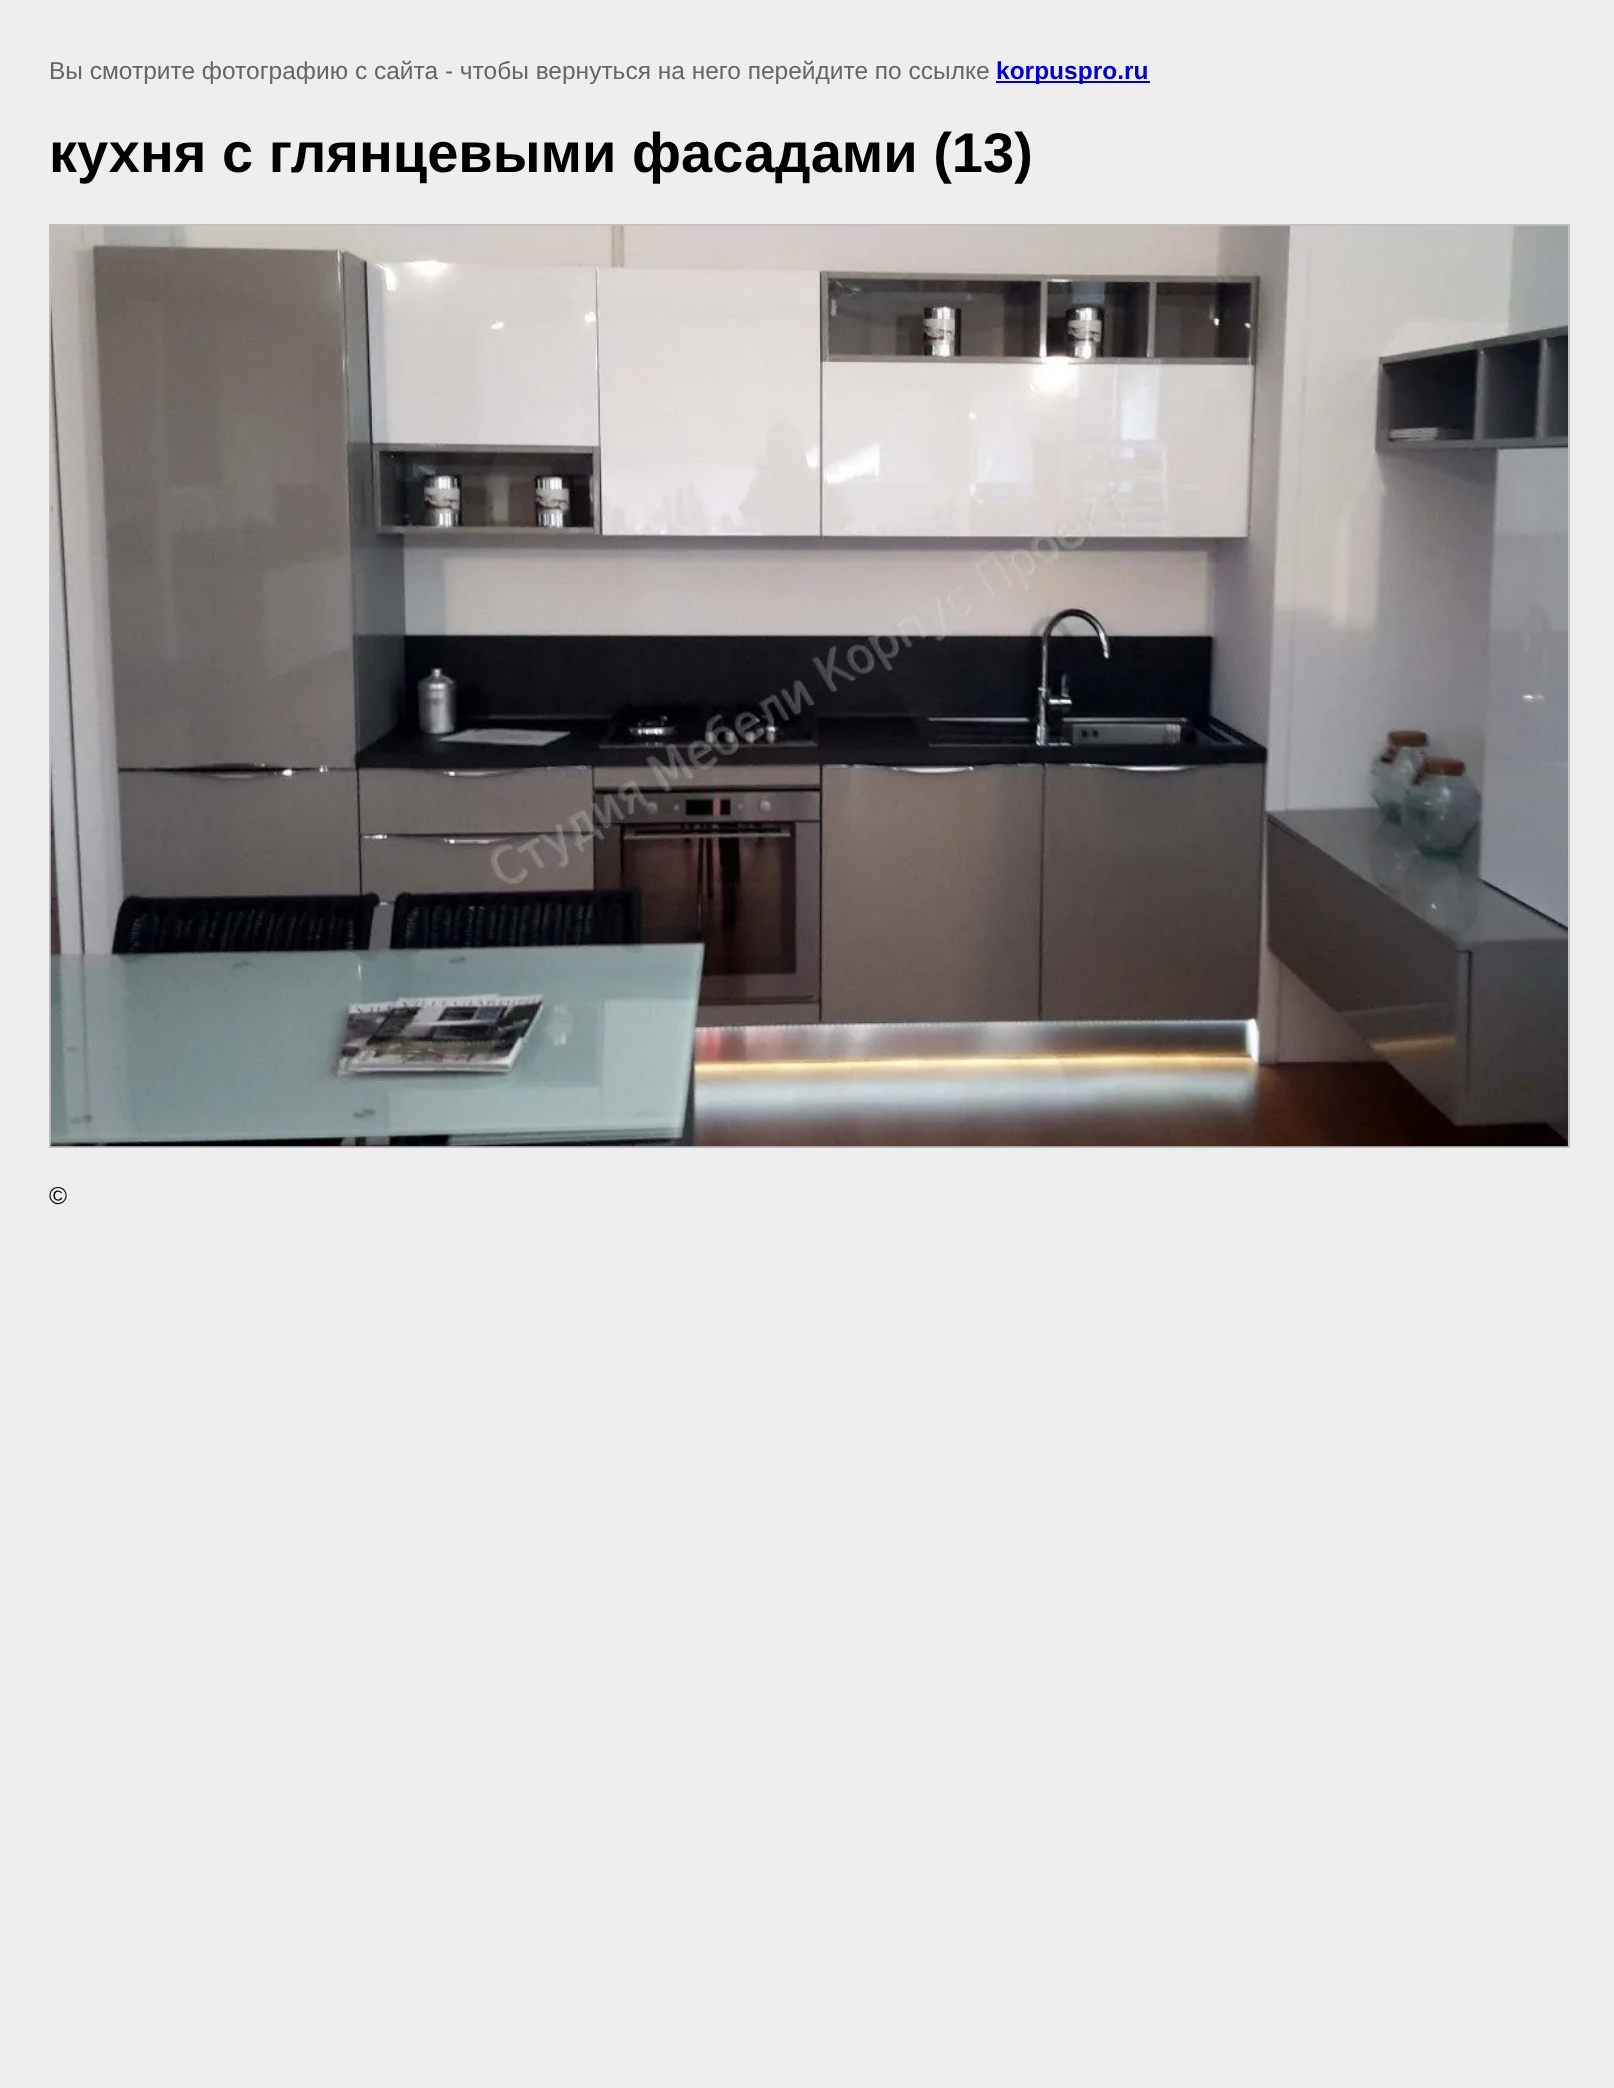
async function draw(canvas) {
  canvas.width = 1614;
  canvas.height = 2088;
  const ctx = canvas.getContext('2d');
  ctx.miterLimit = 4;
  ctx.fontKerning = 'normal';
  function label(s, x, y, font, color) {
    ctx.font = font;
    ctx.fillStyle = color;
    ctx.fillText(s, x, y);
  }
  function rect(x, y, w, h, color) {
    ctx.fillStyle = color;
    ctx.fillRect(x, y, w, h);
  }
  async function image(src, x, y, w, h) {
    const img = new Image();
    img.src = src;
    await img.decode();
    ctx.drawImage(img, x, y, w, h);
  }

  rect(0, 0, 1614, 2088, '#eee');
  label('Вы смотрите фотографию с сайта - чтобы вернуться на него перейдите по ссылке', 49, 79, '24.5px Liberation Sans', '#666');
  rect(996, 81, 154, 2, '#00c');
  label('korpuspro.ru', 996, 79, 'bold 24.5px Liberation Sans', '#00c');
  label('кухня с глянцевыми фасадами (13)', 49, 172, 'bold 56px Liberation Sans', '#000');
  ctx.strokeStyle = '#c0c0c0';
  ctx.lineWidth = 2;
  ctx.strokeRect(50, 225, 1519, 922);
  await image('assets/img1.png', 50, 225, 1518, 922);
  label('©', 49, 1204, '24.5px Liberation Sans', '#000');
}

draw(document.querySelector('canvas'));
